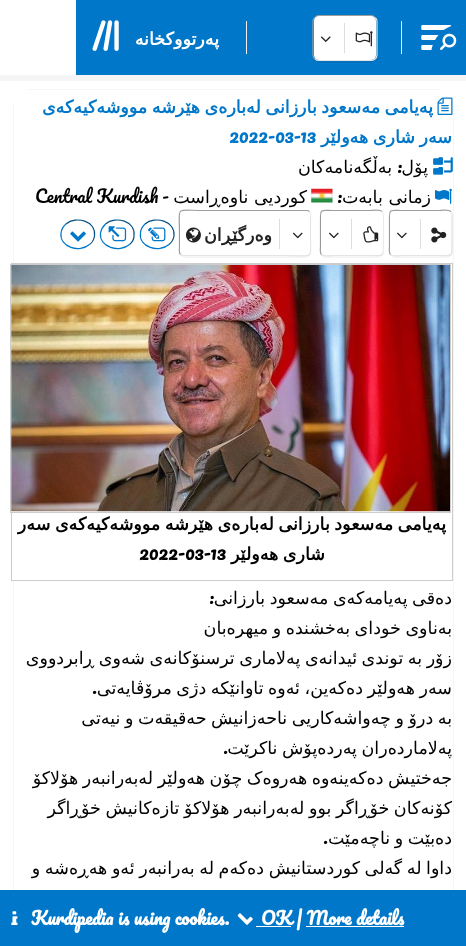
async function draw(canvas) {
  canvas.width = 466;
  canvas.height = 946;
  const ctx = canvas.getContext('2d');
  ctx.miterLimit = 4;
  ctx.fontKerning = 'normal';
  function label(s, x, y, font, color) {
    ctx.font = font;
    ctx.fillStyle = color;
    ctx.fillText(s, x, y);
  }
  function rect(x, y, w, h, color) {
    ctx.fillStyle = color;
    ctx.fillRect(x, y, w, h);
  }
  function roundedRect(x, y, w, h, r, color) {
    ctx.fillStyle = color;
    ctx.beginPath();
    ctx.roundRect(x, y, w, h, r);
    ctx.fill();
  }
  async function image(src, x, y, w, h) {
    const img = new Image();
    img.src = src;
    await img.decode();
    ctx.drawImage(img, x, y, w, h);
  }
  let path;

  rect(0, 0, 466, 946, '#fff');
  rect(76, 0, 390, 75, '#0077c8');
  await image('assets/img2.png', 421, 25, 31, 25);
  path = new Path2D('M466 24H462.5C445 24 431 38 431 55.5V59H466Z');
  ctx.fill(path);
  await image('assets/img1.png', 440, 33, 17, 17);
  rect(401, 21, 1, 33, '#eee');
  path = new Path2D('M375 17.5C376.5 18.5 377 20 377 21V55C377 56.5 376.5 58 375 59C374 60 372.5 60.5 371 60.5H319C317.5 60.5 316 60 315 59');
  ctx.strokeStyle = '#eee';
  ctx.lineWidth = 1.2;
  ctx.stroke(path);
  path = new Path2D('M315 59C313.5 58 313 56.5 313 55V21C313 20 313.5 18.5 315 17.5C316 16 317.5 15.5 319 15.5H371C372.5 15.5 374 16 375 17.5');
  ctx.strokeStyle = '#9f9f9f';
  ctx.stroke(path);
  ctx.fillStyle = '#0000000a';
  path = new Path2D('M319 16C316 16 313 19 313 22V57C313 60 316 63 319 63H372C375 63 378 60 378 57V22C378 19 375 16 372 16ZM319 16C316 16 314 18 314 21V55C314 58 316 60 319 60H371C374 60 376 58 376 55V21C376 18 374 16 371 16Z');
  ctx.fill(path, 'evenodd');
  roundedRect(314, 16, 62, 44, 5, '#fff');
  await image('assets/img3.png', 355, 31, 18, 16);
  rect(344, 23, 1, 30, '#ddd');
  await image('assets/img4.png', 321, 36, 10, 6);
  rect(246, 21, 1, 33, '#eee');
  ctx.direction = 'rtl';
  label('پەرتووکخانە', 219, 45, 'bold 17.5px DejaVu Sans', '#fff');
  await image('assets/img5.png', 92, 20, 27, 31);
  rect(0, 75, 466, 6, '#f5f5f5');
  roundedRect(13, 89, 441, 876, 19, '#f5f5f5');
  rect(14, 90, 439, 800, '#fff');
  await image('assets/img6.png', 437, 97, 16, 18);
  ctx.wordSpacing = '-1px';
  label('پەیامی مەسعود بارزانی لەبارەی هێرشە مووشەکیەکەی', 433, 113, 'bold 17.5px DejaVu Sans', '#0077c8');
  label('سەر شاری هەولێر', 452, 143, 'bold 17.5px DejaVu Sans', '#0077c8');
  ctx.wordSpacing = '0px';
  ctx.direction = 'ltr';
  label('2022-03-13', 229, 143, 'bold 17.5px Pacifico', '#0077c8');
  await image('assets/img7.png', 433, 157, 20, 18);
  ctx.direction = 'rtl';
  label('پۆل', 428, 173, '17.5px DejaVu Sans', '#000');
  label(':', 402, 173, '17.5px Pacifico', '#000');
  label('بەڵگەنامەکان', 392, 173, '17.5px DejaVu Sans', '#000');
  await image('assets/img8.png', 435, 188, 17, 16);
  label('زمانی بابەت', 431, 203, '17.5px DejaVu Sans', '#000');
  label(':', 342, 203, '17.5px Pacifico', '#000');
  await image('assets/img9.png', 311, 188, 22, 15);
  label('کوردیی ناوەڕاست', 307, 203, '17.5px DejaVu Sans', '#000');
  label('-', 169, 203, '17.5px Pacifico', '#000');
  ctx.direction = 'ltr';
  label('Central Kurdish', 35, 203, '17.5px Pacifico', '#000');
  path = new Path2D('M451 211.5C453 213.5 452 219 452 220V246C452 258 452 255.5 439.5 255.5H402C401 255.5 392.5 257 390.5 254.5');
  ctx.strokeStyle = '#eee';
  ctx.stroke(path);
  path = new Path2D('M390.5 254.5C388.5 253 389.5 247.5 389.5 246V220C389.5 208.5 389.5 210.5 402 210.5H439.5C440.5 210.5 448.5 209 451 211.5');
  ctx.strokeStyle = '#9f9f9f';
  ctx.stroke(path);
  ctx.fillStyle = '#0000000a';
  path = new Path2D('M395 211C392 211 389 214 389 217V252C389 255 392 258 395 258H447C450 258 453 255 453 252V217C453 214 450 211 447 211ZM395 211C392 211 390 213 390 216V250C390 253 392 255 395 255H446C449 255 451 253 451 250V216C451 213 449 211 446 211Z');
  ctx.fill(path, 'evenodd');
  roundedRect(390, 211, 61, 44, 5, '#fff');
  await image('assets/img10.png', 431, 227, 16, 16);
  rect(420, 219, 1, 30, '#ddd');
  await image('assets/img11.png', 397, 232, 10, 7);
  path = new Path2D('M382 211.5C384 213.5 383 219 383 220V246C383 258 383 255.5 370.5 255.5H333C332 255.5 324 257 321.5 254.5');
  ctx.strokeStyle = '#eee';
  ctx.stroke(path);
  path = new Path2D('M321.5 254.5C319.5 253 320.5 247.5 320.5 246V220C320.5 208.5 320.5 210.5 333 210.5H370.5C371.5 210.5 380 209 382 211.5');
  ctx.strokeStyle = '#9f9f9f';
  ctx.stroke(path);
  ctx.fillStyle = '#0000000a';
  path = new Path2D('M326 211C323 211 320 214 320 217V252C320 255 323 258 326 258H378C381 258 384 255 384 252V217C384 214 381 211 378 211ZM326 211C323 211 321 213 321 216V250C321 253 323 255 326 255H378C380 255 382 253 382 250V216C382 213 380 211 378 211Z');
  ctx.fill(path, 'evenodd');
  roundedRect(321, 211, 62, 44, 5, '#fff');
  await image('assets/img12.png', 363, 226, 16, 17);
  rect(351, 219, 1, 30, '#ddd');
  await image('assets/img13.png', 329, 232, 10, 7);
  path = new Path2D('M309.5 211.5C311.5 213.5 310.5 219 310.5 220V233C310.5 261 316 255.5 286.5 255.5H182.5L180.5 254.5');
  ctx.strokeStyle = '#eee';
  ctx.stroke(path);
  path = new Path2D('M180.5 254.5C178.5 253 179.5 247.5 179.5 246V233C179.5 205.5 174 210.5 203.5 210.5H307.5L309.5 211.5');
  ctx.strokeStyle = '#9f9f9f';
  ctx.stroke(path);
  ctx.fillStyle = '#0000000a';
  path = new Path2D('M185 211C182 211 179 214 179 217V252C179 255 182 258 185 258H305C308 258 311 255 311 252V217C311 214 308 211 305 211ZM185 211C182 211 180 213 180 216V250C180 253 182 255 185 255H305C308 255 310 253 310 250V216C310 213 308 211 305 211Z');
  ctx.fill(path, 'evenodd');
  roundedRect(180, 211, 130, 44, 5, '#fff');
  await image('assets/img14.png', 292, 232, 11, 7);
  rect(279, 219, 1, 30, '#ddd');
  ctx.direction = 'rtl';
  label('وەرگێڕان', 272, 241, 'bold 17.5px DejaVu Sans', '#222');
  await image('assets/img15.png', 186, 227, 15, 16);
  path = new Path2D('M145 224C142.5 226.5 140.5 229.5 140.5 233C138.5 247.5 159 253 169 244.5');
  ctx.strokeStyle = '#0077c8';
  ctx.stroke(path);
  path = new Path2D('M169 244.5C171.5 242.5 173.5 239 174 236C175.5 221 155 215.5 145 224');
  ctx.strokeStyle = '#004f85';
  ctx.stroke(path);
  await image('assets/img16.png', 148, 227, 18, 15);
  path = new Path2D('M105.5 224C103 226.5 101 229.5 100.5 233C99 247.5 119.5 253 129.5 244.5');
  ctx.strokeStyle = '#0077c8';
  ctx.stroke(path);
  path = new Path2D('M129.5 244.5C132 242.5 134 239 134 236C136 221 115.5 215.5 105.5 224');
  ctx.strokeStyle = '#004f85';
  ctx.stroke(path);
  await image('assets/img17.png', 108, 226, 19, 16);
  path = new Path2D('M66 224C63 226.5 61.5 229.5 61 233C59.5 247.5 79.5 253 89.5 244.5');
  ctx.strokeStyle = '#0077c8';
  ctx.stroke(path);
  path = new Path2D('M89.5 244.5C92.5 242.5 94 239 94.5 236C96.5 221 76 215.5 66 224');
  ctx.strokeStyle = '#004f85';
  ctx.stroke(path);
  await image('assets/img18.png', 70, 231, 16, 11);
  rect(13, 264, 1, 316, '#fff');
  ctx.strokeStyle = '#ccc';
  ctx.lineWidth = 1;
  ctx.strokeRect(11.5, 263.5, 441, 317);
  rect(11, 265, 1, 247, '#fff');
  ctx.strokeRect(10.5, 264.5, 440, 248);
  await image('assets/img19.png', 11, 265, 439, 247);
  ctx.wordSpacing = '-1px';
  label('پەیامی مەسعود بارزانی لەبارەی هێرشە مووشەکیەکەی سەر', 446, 530, 'bold 17.5px DejaVu Sans', '#000');
  label('شاری هەولێر', 325, 560, 'bold 17.5px DejaVu Sans', '#000');
  ctx.wordSpacing = '0px';
  ctx.direction = 'ltr';
  label('2022-03-13', 139, 560, 'bold 17.5px Pacifico', '#000');
  ctx.wordSpacing = '-1px';
  ctx.direction = 'rtl';
  label('دەقی پەیامەکەی مەسعود بارزانی', 452, 604, '17.5px DejaVu Sans', '#000');
  ctx.wordSpacing = '0px';
  label(':', 214, 604, '17.5px Pacifico', '#000');
  ctx.wordSpacing = '-1px';
  label('بەناوی خودای بەخشندە و میهرەبان', 452, 634, '17.5px DejaVu Sans', '#000');
  label('زۆر بە توندی ئیدانەی پەلاماری ترسنۆکانەی شەوی ڕابردووی', 452, 664, '17.5px DejaVu Sans', '#000');
  label('سەر هەولێر دەکەین، ئەوە تاوانێکە دژی مرۆڤایەتی', 452, 694, '17.5px DejaVu Sans', '#000');
  ctx.wordSpacing = '0px';
  label('.', 97, 694, '17.5px Pacifico', '#000');
  ctx.wordSpacing = '-1px';
  label('بە درۆ و چەواشەکاریی ناحەزانیش حەقیقەت و نیەتی', 452, 724, '17.5px DejaVu Sans', '#000');
  label('پەلاماردەران پەردەپۆش ناکرێت', 452, 754, '17.5px DejaVu Sans', '#000');
  ctx.wordSpacing = '0px';
  label('.', 228, 754, '17.5px Pacifico', '#000');
  ctx.wordSpacing = '-1px';
  label('جەختیش دەکەینەوە هەروەک چۆن هەولێر لەبەرانبەر هۆلاکۆ', 452, 784, '17.5px DejaVu Sans', '#000');
  label('کۆنەکان خۆڕاگر بوو لەبەرانبەر هۆلاکۆ تازەکانیش خۆڕاگر', 452, 814, '17.5px DejaVu Sans', '#000');
  label('دەبێت و ناچەمێت', 452, 844, '17.5px DejaVu Sans', '#000');
  ctx.wordSpacing = '0px';
  label('.', 328, 844, '17.5px Pacifico', '#000');
  ctx.wordSpacing = '-1px';
  label('داوا لە گەلی کوردستانیش دەکەم لە بەرانبەر ئەو هەڕەشە و', 452, 874, '17.5px DejaVu Sans', '#000');
  rect(0, 890, 466, 56, '#0077c8');
  rect(256, 926, 35, 1, '#fff');
  ctx.wordSpacing = '0px';
  ctx.direction = 'ltr';
  label('OK | More details', 261, 925, 'bold 17.5px Pacifico', '#fff');
  await image('assets/img20.png', 237, 913, 16, 12);
  label('Kurdipedia is using cookies.', 31, 925, 'bold 17.5px Pacifico', '#fff');
  await image('assets/img21.png', 11, 911, 7, 14);
  rect(306, 926, 98, 1, '#fff');
}

draw(document.querySelector('canvas'));
